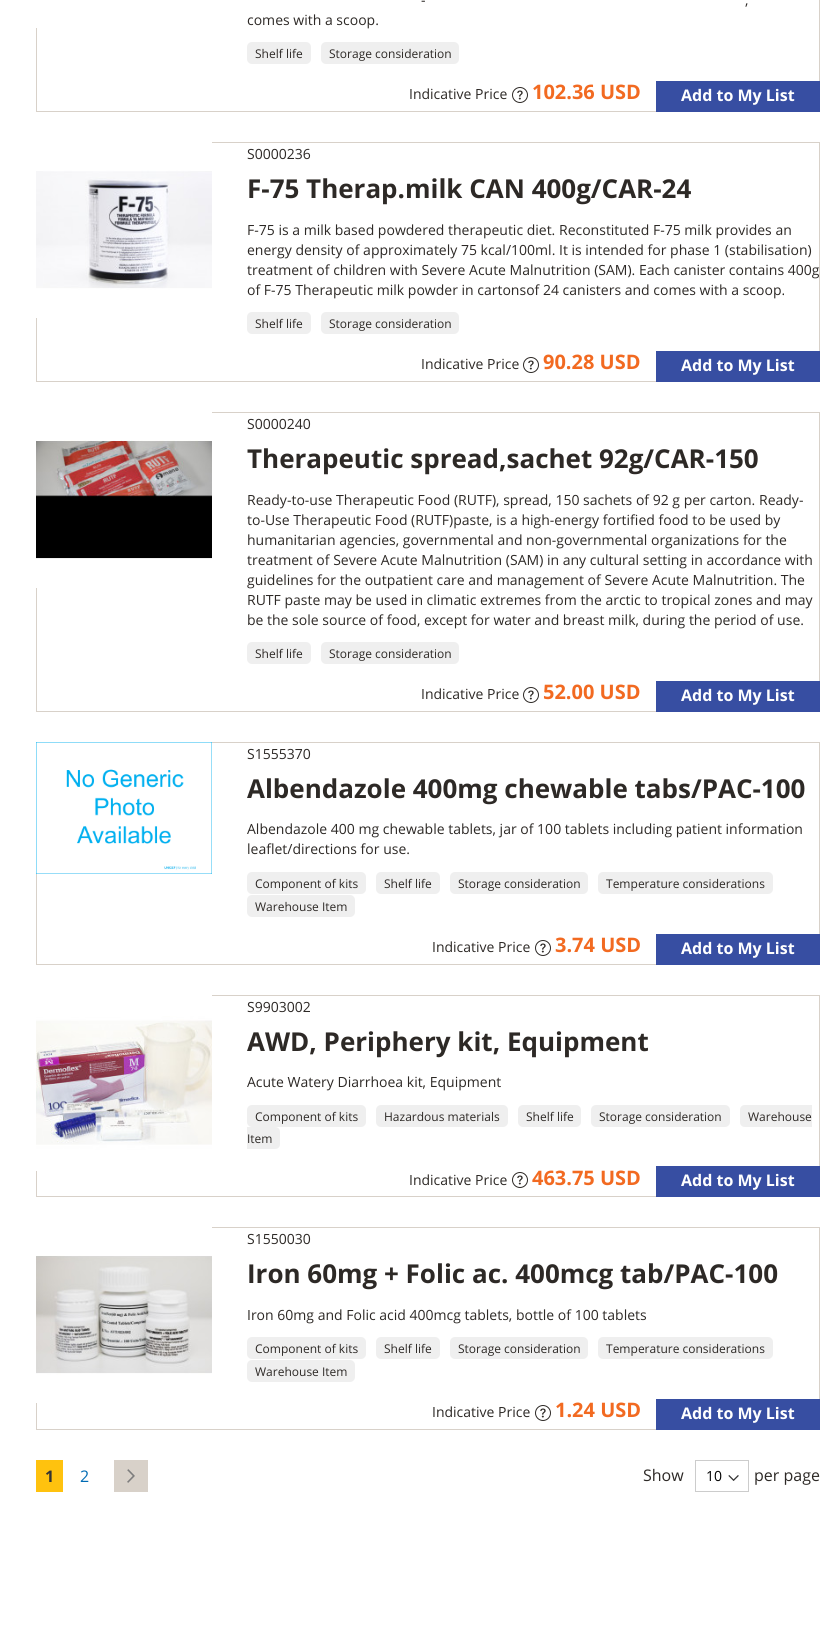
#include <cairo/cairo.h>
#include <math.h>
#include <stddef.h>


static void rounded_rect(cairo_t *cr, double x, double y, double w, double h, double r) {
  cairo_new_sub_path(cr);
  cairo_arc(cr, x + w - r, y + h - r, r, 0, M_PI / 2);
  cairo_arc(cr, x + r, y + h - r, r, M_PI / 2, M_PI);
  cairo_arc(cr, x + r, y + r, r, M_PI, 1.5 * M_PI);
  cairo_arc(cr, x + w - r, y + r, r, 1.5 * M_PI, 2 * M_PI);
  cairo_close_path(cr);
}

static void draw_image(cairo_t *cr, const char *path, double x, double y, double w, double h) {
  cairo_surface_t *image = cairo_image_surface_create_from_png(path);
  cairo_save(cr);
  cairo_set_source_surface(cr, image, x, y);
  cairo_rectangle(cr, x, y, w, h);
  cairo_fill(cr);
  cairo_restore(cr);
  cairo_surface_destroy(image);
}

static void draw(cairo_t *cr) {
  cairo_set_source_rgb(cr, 1, 1, 1);
  cairo_paint(cr);
  cairo_rectangle(cr, 36.5, -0.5, 783, 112);
  cairo_set_source_rgb(cr, 216 / 255.0, 209 / 255.0, 201 / 255.0);
  cairo_set_line_width(cr, 1);
  cairo_stroke(cr);
  cairo_set_source_rgb(cr, 1, 1, 1);
  cairo_rectangle(cr, 36, 0, 1, 28);
  cairo_fill(cr);
  cairo_set_source_rgb(cr, 239 / 255.0, 239 / 255.0, 239 / 255.0);
  rounded_rect(cr, 247, 42, 64, 22, 5);
  cairo_fill(cr);
  rounded_rect(cr, 321, 42, 138, 22, 5);
  cairo_fill(cr);
  draw_image(cr, "images/1.png", 512, 87, 16, 16);
  cairo_set_source_rgb(cr, 55 / 255.0, 78 / 255.0, 162 / 255.0);
  cairo_rectangle(cr, 656, 81, 164, 31);
  cairo_fill(cr);
  cairo_rectangle(cr, 36.5, 142.5, 783, 239);
  cairo_set_source_rgb(cr, 216 / 255.0, 209 / 255.0, 201 / 255.0);
  cairo_stroke(cr);
  draw_image(cr, "images/2.png", 36, 142, 176, 176);
  cairo_set_source_rgb(cr, 239 / 255.0, 239 / 255.0, 239 / 255.0);
  rounded_rect(cr, 247, 312, 64, 22, 5);
  cairo_fill(cr);
  rounded_rect(cr, 321, 312, 138, 22, 5);
  cairo_fill(cr);
  draw_image(cr, "images/1.png", 523, 357, 16, 16);
  cairo_set_source_rgb(cr, 55 / 255.0, 78 / 255.0, 162 / 255.0);
  cairo_rectangle(cr, 656, 351, 164, 31);
  cairo_fill(cr);
  cairo_rectangle(cr, 36.5, 412.5, 783, 299);
  cairo_set_source_rgb(cr, 216 / 255.0, 209 / 255.0, 201 / 255.0);
  cairo_stroke(cr);
  draw_image(cr, "images/3.png", 36, 412, 176, 176);
  cairo_set_source_rgb(cr, 239 / 255.0, 239 / 255.0, 239 / 255.0);
  rounded_rect(cr, 247, 642, 64, 22, 5);
  cairo_fill(cr);
  rounded_rect(cr, 321, 642, 138, 22, 5);
  cairo_fill(cr);
  draw_image(cr, "images/1.png", 523, 687, 16, 16);
  cairo_set_source_rgb(cr, 55 / 255.0, 78 / 255.0, 162 / 255.0);
  cairo_rectangle(cr, 656, 681, 164, 31);
  cairo_fill(cr);
  cairo_rectangle(cr, 36.5, 742.5, 783, 222);
  cairo_set_source_rgb(cr, 216 / 255.0, 209 / 255.0, 201 / 255.0);
  cairo_stroke(cr);
  draw_image(cr, "images/4.png", 36, 742, 176, 132);
  cairo_set_source_rgb(cr, 239 / 255.0, 239 / 255.0, 239 / 255.0);
  rounded_rect(cr, 247, 872, 119, 22, 5);
  cairo_fill(cr);
  rounded_rect(cr, 376, 872, 64, 22, 5);
  cairo_fill(cr);
  rounded_rect(cr, 450, 872, 138, 22, 5);
  cairo_fill(cr);
  rounded_rect(cr, 598, 872, 175, 22, 5);
  cairo_fill(cr);
  rounded_rect(cr, 247, 895, 108, 22, 5);
  cairo_fill(cr);
  draw_image(cr, "images/1.png", 535, 940, 16, 16);
  cairo_set_source_rgb(cr, 55 / 255.0, 78 / 255.0, 162 / 255.0);
  cairo_rectangle(cr, 656, 934, 164, 31);
  cairo_fill(cr);
  cairo_rectangle(cr, 36.5, 995.5, 783, 201);
  cairo_set_source_rgb(cr, 216 / 255.0, 209 / 255.0, 201 / 255.0);
  cairo_stroke(cr);
  draw_image(cr, "images/5.png", 36, 995, 176, 176);
  cairo_set_source_rgb(cr, 239 / 255.0, 239 / 255.0, 239 / 255.0);
  rounded_rect(cr, 247, 1105, 119, 22, 5);
  cairo_fill(cr);
  rounded_rect(cr, 376, 1105, 132, 22, 5);
  cairo_fill(cr);
  rounded_rect(cr, 518, 1105, 63, 22, 5);
  cairo_fill(cr);
  rounded_rect(cr, 591, 1105, 139, 22, 5);
  cairo_fill(cr);
  cairo_new_path(cr);
  cairo_move_to(cr, 745, 1105);
  cairo_line_to(cr, 812, 1105);
  cairo_line_to(cr, 812, 1127);
  cairo_line_to(cr, 745, 1127);
  cairo_curve_to(cr, 742, 1127, 740, 1125, 740, 1122);
  cairo_line_to(cr, 740, 1110);
  cairo_curve_to(cr, 740, 1107, 742, 1105, 745, 1105);
  cairo_close_path(cr);
  cairo_fill(cr);
  cairo_new_path(cr);
  cairo_move_to(cr, 247, 1127);
  cairo_line_to(cr, 275, 1127);
  cairo_curve_to(cr, 278, 1127, 280, 1129, 280, 1132);
  cairo_line_to(cr, 280, 1144);
  cairo_curve_to(cr, 280, 1147, 278, 1149, 275, 1149);
  cairo_line_to(cr, 247, 1149);
  cairo_close_path(cr);
  cairo_fill(cr);
  draw_image(cr, "images/1.png", 512, 1172, 16, 16);
  cairo_set_source_rgb(cr, 55 / 255.0, 78 / 255.0, 162 / 255.0);
  cairo_rectangle(cr, 656, 1166, 164, 31);
  cairo_fill(cr);
  cairo_rectangle(cr, 36.5, 1227.5, 783, 202);
  cairo_set_source_rgb(cr, 216 / 255.0, 209 / 255.0, 201 / 255.0);
  cairo_stroke(cr);
  draw_image(cr, "images/6.png", 36, 1227, 176, 176);
  cairo_set_source_rgb(cr, 239 / 255.0, 239 / 255.0, 239 / 255.0);
  rounded_rect(cr, 247, 1337, 119, 22, 5);
  cairo_fill(cr);
  rounded_rect(cr, 376, 1337, 64, 22, 5);
  cairo_fill(cr);
  rounded_rect(cr, 450, 1337, 138, 22, 5);
  cairo_fill(cr);
  rounded_rect(cr, 598, 1337, 175, 22, 5);
  cairo_fill(cr);
  rounded_rect(cr, 247, 1360, 108, 22, 5);
  cairo_fill(cr);
  draw_image(cr, "images/1.png", 535, 1405, 16, 16);
  cairo_set_source_rgb(cr, 55 / 255.0, 78 / 255.0, 162 / 255.0);
  cairo_rectangle(cr, 656, 1399, 164, 31);
  cairo_fill(cr);
  cairo_set_source_rgb(cr, 1, 194 / 255.0, 14 / 255.0);
  cairo_rectangle(cr, 36, 1460, 27, 32);
  cairo_fill(cr);
  cairo_set_source_rgb(cr, 216 / 255.0, 209 / 255.0, 201 / 255.0);
  cairo_rectangle(cr, 114, 1460, 34, 32);
  cairo_fill(cr);
  draw_image(cr, "images/7.png", 127, 1469, 8, 14);
  draw_image(cr, "images/8.png", 728, 1475, 11, 6);
  cairo_rectangle(cr, 695.5, 1460.5, 53, 31);
  cairo_set_source_rgb(cr, 204 / 255.0, 204 / 255.0, 204 / 255.0);
  cairo_stroke(cr);
  cairo_select_font_face(cr, "Open Sans", CAIRO_FONT_SLANT_NORMAL, CAIRO_FONT_WEIGHT_NORMAL);
  cairo_set_font_size(cr, 14);
  cairo_set_source_rgb(cr, 45 / 255.0, 41 / 255.0, 38 / 255.0);
  cairo_move_to(cr, 421, 5);
  cairo_show_text(cr, "-");
  cairo_move_to(cr, 745, 5);
  cairo_show_text(cr, ",");
  cairo_move_to(cr, 247, 25);
  cairo_show_text(cr, "comes with a scoop.");
  cairo_set_font_size(cr, 12);
  cairo_move_to(cr, 255, 58);
  cairo_show_text(cr, "Shelf life");
  cairo_move_to(cr, 329, 58);
  cairo_show_text(cr, "Storage consideration");
  cairo_set_font_size(cr, 14);
  cairo_move_to(cr, 409, 99);
  cairo_show_text(cr, "Indicative Price");
  cairo_select_font_face(cr, "Open Sans", CAIRO_FONT_SLANT_NORMAL, CAIRO_FONT_WEIGHT_BOLD);
  cairo_set_font_size(cr, 20);
  cairo_set_source_rgb(cr, 242 / 255.0, 106 / 255.0, 33 / 255.0);
  cairo_move_to(cr, 532, 99);
  cairo_show_text(cr, "102.36 USD");
  cairo_set_font_size(cr, 16);
  cairo_set_source_rgb(cr, 1, 1, 1);
  cairo_move_to(cr, 681, 101);
  cairo_show_text(cr, "Add to My List");
  cairo_select_font_face(cr, "Open Sans", CAIRO_FONT_SLANT_NORMAL, CAIRO_FONT_WEIGHT_NORMAL);
  cairo_set_font_size(cr, 14);
  cairo_set_source_rgb(cr, 45 / 255.0, 41 / 255.0, 38 / 255.0);
  cairo_move_to(cr, 247, 159);
  cairo_show_text(cr, "S0000236");
  cairo_select_font_face(cr, "Open Sans", CAIRO_FONT_SLANT_NORMAL, CAIRO_FONT_WEIGHT_BOLD);
  cairo_set_font_size(cr, 26);
  cairo_move_to(cr, 247, 198);
  cairo_show_text(cr, "F-75 Therap.milk CAN 400g/CAR-24");
  cairo_select_font_face(cr, "Open Sans", CAIRO_FONT_SLANT_NORMAL, CAIRO_FONT_WEIGHT_NORMAL);
  cairo_set_font_size(cr, 14);
  cairo_move_to(cr, 247, 235);
  cairo_show_text(cr, "F-75 is a milk based powdered therapeutic diet. Reconstituted F-75 milk provides an");
  cairo_move_to(cr, 247, 255);
  cairo_show_text(cr, "energy density of approximately 75 kcal/100ml. It is intended for phase 1 (stabilisation)");
  cairo_move_to(cr, 247, 275);
  cairo_show_text(cr, "treatment of children with Severe Acute Malnutrition (SAM). Each canister contains 400g");
  cairo_move_to(cr, 247, 295);
  cairo_show_text(cr, "of F-75 Therapeutic milk powder in cartonsof 24 canisters and comes with a scoop.");
  cairo_set_font_size(cr, 12);
  cairo_move_to(cr, 255, 328);
  cairo_show_text(cr, "Shelf life");
  cairo_move_to(cr, 329, 328);
  cairo_show_text(cr, "Storage consideration");
  cairo_set_font_size(cr, 14);
  cairo_move_to(cr, 421, 369);
  cairo_show_text(cr, "Indicative Price");
  cairo_select_font_face(cr, "Open Sans", CAIRO_FONT_SLANT_NORMAL, CAIRO_FONT_WEIGHT_BOLD);
  cairo_set_font_size(cr, 20);
  cairo_set_source_rgb(cr, 242 / 255.0, 106 / 255.0, 33 / 255.0);
  cairo_move_to(cr, 543, 369);
  cairo_show_text(cr, "90.28 USD");
  cairo_set_font_size(cr, 16);
  cairo_set_source_rgb(cr, 1, 1, 1);
  cairo_move_to(cr, 681, 371);
  cairo_show_text(cr, "Add to My List");
  cairo_select_font_face(cr, "Open Sans", CAIRO_FONT_SLANT_NORMAL, CAIRO_FONT_WEIGHT_NORMAL);
  cairo_set_font_size(cr, 14);
  cairo_set_source_rgb(cr, 45 / 255.0, 41 / 255.0, 38 / 255.0);
  cairo_move_to(cr, 247, 429);
  cairo_show_text(cr, "S0000240");
  cairo_select_font_face(cr, "Open Sans", CAIRO_FONT_SLANT_NORMAL, CAIRO_FONT_WEIGHT_BOLD);
  cairo_set_font_size(cr, 26);
  cairo_move_to(cr, 247, 468);
  cairo_show_text(cr, "Therapeutic spread,sachet 92g/CAR-150");
  cairo_select_font_face(cr, "Open Sans", CAIRO_FONT_SLANT_NORMAL, CAIRO_FONT_WEIGHT_NORMAL);
  cairo_set_font_size(cr, 14);
  cairo_move_to(cr, 247, 505);
  cairo_show_text(cr, "Ready-to-use Therapeutic Food (RUTF), spread, 150 sachets of 92 g per carton. Ready-");
  cairo_move_to(cr, 247, 525);
  cairo_show_text(cr, "to-Use Therapeutic Food (RUTF)paste, is a high-energy fortified food to be used by");
  cairo_move_to(cr, 247, 545);
  cairo_show_text(cr, "humanitarian agencies, governmental and non-governmental organizations for the");
  cairo_move_to(cr, 247, 565);
  cairo_show_text(cr, "treatment of Severe Acute Malnutrition (SAM) in any cultural setting in accordance with");
  cairo_move_to(cr, 247, 585);
  cairo_show_text(cr, "guidelines for the outpatient care and management of Severe Acute Malnutrition. The");
  cairo_move_to(cr, 247, 605);
  cairo_show_text(cr, "RUTF paste may be used in climatic extremes from the arctic to tropical zones and may");
  cairo_move_to(cr, 247, 625);
  cairo_show_text(cr, "be the sole source of food, except for water and breast milk, during the period of use.");
  cairo_set_font_size(cr, 12);
  cairo_move_to(cr, 255, 658);
  cairo_show_text(cr, "Shelf life");
  cairo_move_to(cr, 329, 658);
  cairo_show_text(cr, "Storage consideration");
  cairo_set_font_size(cr, 14);
  cairo_move_to(cr, 421, 699);
  cairo_show_text(cr, "Indicative Price");
  cairo_select_font_face(cr, "Open Sans", CAIRO_FONT_SLANT_NORMAL, CAIRO_FONT_WEIGHT_BOLD);
  cairo_set_font_size(cr, 20);
  cairo_set_source_rgb(cr, 242 / 255.0, 106 / 255.0, 33 / 255.0);
  cairo_move_to(cr, 543, 699);
  cairo_show_text(cr, "52.00 USD");
  cairo_set_font_size(cr, 16);
  cairo_set_source_rgb(cr, 1, 1, 1);
  cairo_move_to(cr, 681, 701);
  cairo_show_text(cr, "Add to My List");
  cairo_select_font_face(cr, "Open Sans", CAIRO_FONT_SLANT_NORMAL, CAIRO_FONT_WEIGHT_NORMAL);
  cairo_set_font_size(cr, 14);
  cairo_set_source_rgb(cr, 45 / 255.0, 41 / 255.0, 38 / 255.0);
  cairo_move_to(cr, 247, 759);
  cairo_show_text(cr, "S1555370");
  cairo_select_font_face(cr, "Open Sans", CAIRO_FONT_SLANT_NORMAL, CAIRO_FONT_WEIGHT_BOLD);
  cairo_set_font_size(cr, 26);
  cairo_move_to(cr, 247, 798);
  cairo_show_text(cr, "Albendazole 400mg chewable tabs/PAC-100");
  cairo_select_font_face(cr, "Open Sans", CAIRO_FONT_SLANT_NORMAL, CAIRO_FONT_WEIGHT_NORMAL);
  cairo_set_font_size(cr, 14);
  cairo_move_to(cr, 247, 834);
  cairo_show_text(cr, "Albendazole 400 mg chewable tablets, jar of 100 tablets including patient information");
  cairo_move_to(cr, 247, 854);
  cairo_show_text(cr, "leaflet/directions for use.");
  cairo_set_font_size(cr, 12);
  cairo_move_to(cr, 255, 888);
  cairo_show_text(cr, "Component of kits");
  cairo_move_to(cr, 384, 888);
  cairo_show_text(cr, "Shelf life");
  cairo_move_to(cr, 458, 888);
  cairo_show_text(cr, "Storage consideration");
  cairo_move_to(cr, 606, 888);
  cairo_show_text(cr, "Temperature considerations");
  cairo_move_to(cr, 255, 911);
  cairo_show_text(cr, "Warehouse Item");
  cairo_set_font_size(cr, 14);
  cairo_move_to(cr, 432, 952);
  cairo_show_text(cr, "Indicative Price");
  cairo_select_font_face(cr, "Open Sans", CAIRO_FONT_SLANT_NORMAL, CAIRO_FONT_WEIGHT_BOLD);
  cairo_set_font_size(cr, 20);
  cairo_set_source_rgb(cr, 242 / 255.0, 106 / 255.0, 33 / 255.0);
  cairo_move_to(cr, 555, 952);
  cairo_show_text(cr, "3.74 USD");
  cairo_set_font_size(cr, 16);
  cairo_set_source_rgb(cr, 1, 1, 1);
  cairo_move_to(cr, 681, 954);
  cairo_show_text(cr, "Add to My List");
  cairo_select_font_face(cr, "Open Sans", CAIRO_FONT_SLANT_NORMAL, CAIRO_FONT_WEIGHT_NORMAL);
  cairo_set_font_size(cr, 14);
  cairo_set_source_rgb(cr, 45 / 255.0, 41 / 255.0, 38 / 255.0);
  cairo_move_to(cr, 247, 1012);
  cairo_show_text(cr, "S9903002");
  cairo_select_font_face(cr, "Open Sans", CAIRO_FONT_SLANT_NORMAL, CAIRO_FONT_WEIGHT_BOLD);
  cairo_set_font_size(cr, 26);
  cairo_move_to(cr, 247, 1051);
  cairo_show_text(cr, "AWD, Periphery kit, Equipment");
  cairo_select_font_face(cr, "Open Sans", CAIRO_FONT_SLANT_NORMAL, CAIRO_FONT_WEIGHT_NORMAL);
  cairo_set_font_size(cr, 14);
  cairo_move_to(cr, 247, 1087);
  cairo_show_text(cr, "Acute Watery Diarrhoea kit, Equipment");
  cairo_set_font_size(cr, 12);
  cairo_move_to(cr, 255, 1121);
  cairo_show_text(cr, "Component of kits");
  cairo_move_to(cr, 384, 1121);
  cairo_show_text(cr, "Hazardous materials");
  cairo_move_to(cr, 526, 1121);
  cairo_show_text(cr, "Shelf life");
  cairo_move_to(cr, 599, 1121);
  cairo_show_text(cr, "Storage consideration");
  cairo_move_to(cr, 748, 1121);
  cairo_show_text(cr, "Warehouse");
  cairo_move_to(cr, 247, 1143);
  cairo_show_text(cr, "Item");
  cairo_set_font_size(cr, 14);
  cairo_move_to(cr, 409, 1185);
  cairo_show_text(cr, "Indicative Price");
  cairo_select_font_face(cr, "Open Sans", CAIRO_FONT_SLANT_NORMAL, CAIRO_FONT_WEIGHT_BOLD);
  cairo_set_font_size(cr, 20);
  cairo_set_source_rgb(cr, 242 / 255.0, 106 / 255.0, 33 / 255.0);
  cairo_move_to(cr, 532, 1185);
  cairo_show_text(cr, "463.75 USD");
  cairo_set_font_size(cr, 16);
  cairo_set_source_rgb(cr, 1, 1, 1);
  cairo_move_to(cr, 681, 1186);
  cairo_show_text(cr, "Add to My List");
  cairo_select_font_face(cr, "Open Sans", CAIRO_FONT_SLANT_NORMAL, CAIRO_FONT_WEIGHT_NORMAL);
  cairo_set_font_size(cr, 14);
  cairo_set_source_rgb(cr, 45 / 255.0, 41 / 255.0, 38 / 255.0);
  cairo_move_to(cr, 247, 1244);
  cairo_show_text(cr, "S1550030");
  cairo_select_font_face(cr, "Open Sans", CAIRO_FONT_SLANT_NORMAL, CAIRO_FONT_WEIGHT_BOLD);
  cairo_set_font_size(cr, 26);
  cairo_move_to(cr, 247, 1283);
  cairo_show_text(cr, "Iron 60mg + Folic ac. 400mcg tab/PAC-100");
  cairo_select_font_face(cr, "Open Sans", CAIRO_FONT_SLANT_NORMAL, CAIRO_FONT_WEIGHT_NORMAL);
  cairo_set_font_size(cr, 14);
  cairo_move_to(cr, 247, 1320);
  cairo_show_text(cr, "Iron 60mg and Folic acid 400mcg tablets, bottle of 100 tablets");
  cairo_set_font_size(cr, 12);
  cairo_move_to(cr, 255, 1353);
  cairo_show_text(cr, "Component of kits");
  cairo_move_to(cr, 384, 1353);
  cairo_show_text(cr, "Shelf life");
  cairo_move_to(cr, 458, 1353);
  cairo_show_text(cr, "Storage consideration");
  cairo_move_to(cr, 606, 1353);
  cairo_show_text(cr, "Temperature considerations");
  cairo_move_to(cr, 255, 1376);
  cairo_show_text(cr, "Warehouse Item");
  cairo_set_font_size(cr, 14);
  cairo_move_to(cr, 432, 1417);
  cairo_show_text(cr, "Indicative Price");
  cairo_select_font_face(cr, "Open Sans", CAIRO_FONT_SLANT_NORMAL, CAIRO_FONT_WEIGHT_BOLD);
  cairo_set_font_size(cr, 20);
  cairo_set_source_rgb(cr, 242 / 255.0, 106 / 255.0, 33 / 255.0);
  cairo_move_to(cr, 555, 1417);
  cairo_show_text(cr, "1.24 USD");
  cairo_set_font_size(cr, 16);
  cairo_set_source_rgb(cr, 1, 1, 1);
  cairo_move_to(cr, 681, 1419);
  cairo_show_text(cr, "Add to My List");
  cairo_set_source_rgb(cr, 51 / 255.0, 51 / 255.0, 51 / 255.0);
  cairo_move_to(cr, 45, 1482);
  cairo_show_text(cr, "1");
  cairo_select_font_face(cr, "Open Sans", CAIRO_FONT_SLANT_NORMAL, CAIRO_FONT_WEIGHT_NORMAL);
  cairo_set_source_rgb(cr, 0, 107 / 255.0, 180 / 255.0);
  cairo_move_to(cr, 80, 1482);
  cairo_show_text(cr, "2");
  cairo_set_source_rgb(cr, 45 / 255.0, 41 / 255.0, 38 / 255.0);
  cairo_move_to(cr, 643, 1481);
  cairo_show_text(cr, "Show");
  cairo_set_font_size(cr, 14);
  cairo_set_source_rgb(cr, 0, 0, 0);
  cairo_move_to(cr, 706, 1481);
  cairo_show_text(cr, "10");
  cairo_set_font_size(cr, 16);
  cairo_set_source_rgb(cr, 45 / 255.0, 41 / 255.0, 38 / 255.0);
  cairo_move_to(cr, 754, 1481);
  cairo_show_text(cr, "per page");
}

int main(void) {
  cairo_surface_t *surface = cairo_image_surface_create(CAIRO_FORMAT_RGB24, 840, 1632);
  cairo_t *cr = cairo_create(surface);
  cairo_font_options_t *options = cairo_font_options_create();
  cairo_font_options_set_hint_metrics(options, CAIRO_HINT_METRICS_OFF);
  cairo_font_options_set_hint_style(options, CAIRO_HINT_STYLE_NONE);
  cairo_set_font_options(cr, options);
  cairo_set_miter_limit(cr, 4);
  draw(cr);
  cairo_surface_write_to_png(surface, "out.png");
  cairo_font_options_destroy(options);
  cairo_destroy(cr);
  cairo_surface_destroy(surface);
  return 0;
}
